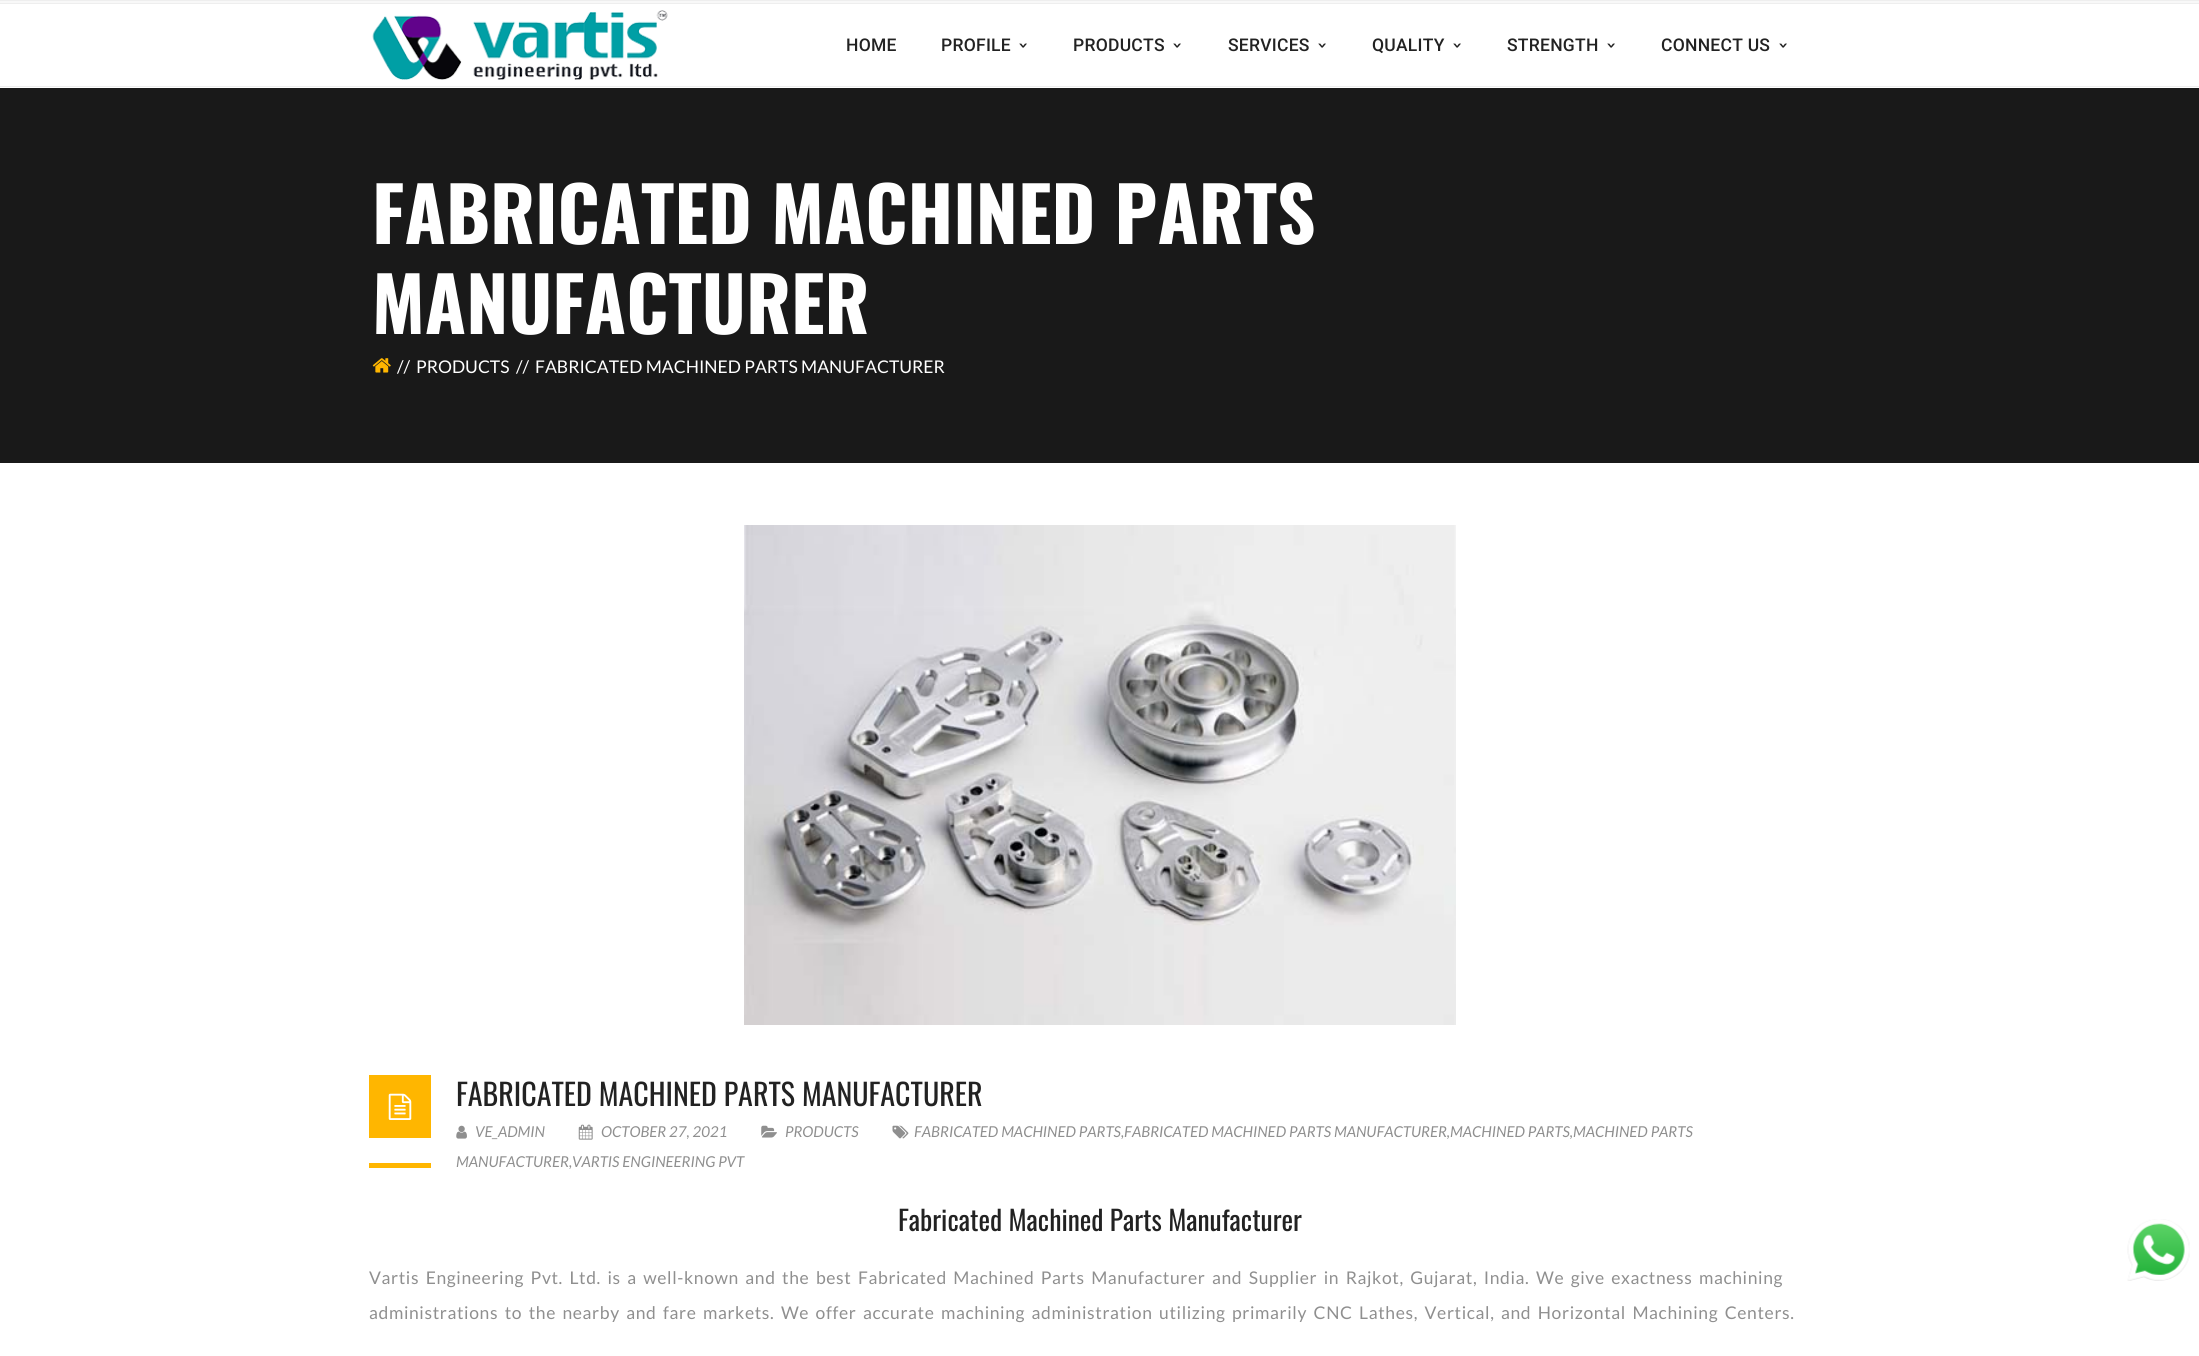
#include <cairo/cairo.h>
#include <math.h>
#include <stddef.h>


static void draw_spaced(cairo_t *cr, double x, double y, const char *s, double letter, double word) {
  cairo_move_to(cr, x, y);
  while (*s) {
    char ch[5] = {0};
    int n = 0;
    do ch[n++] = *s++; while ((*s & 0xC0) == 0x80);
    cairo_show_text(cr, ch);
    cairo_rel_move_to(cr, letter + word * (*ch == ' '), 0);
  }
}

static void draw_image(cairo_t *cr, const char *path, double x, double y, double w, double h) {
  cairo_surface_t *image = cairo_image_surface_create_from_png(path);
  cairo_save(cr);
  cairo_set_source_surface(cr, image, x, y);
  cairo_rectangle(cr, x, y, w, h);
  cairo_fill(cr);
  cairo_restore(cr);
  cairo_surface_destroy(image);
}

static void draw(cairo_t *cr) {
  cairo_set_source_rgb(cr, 1, 1, 1);
  cairo_paint(cr);
  cairo_set_source_rgb(cr, 248 / 255.0, 248 / 255.0, 248 / 255.0);
  cairo_rectangle(cr, 0, 1, 2199, 2);
  cairo_fill(cr);
  cairo_set_source_rgb(cr, 238 / 255.0, 238 / 255.0, 238 / 255.0);
  cairo_rectangle(cr, 0, 0, 2199, 1);
  cairo_fill(cr);
  cairo_rectangle(cr, 0, 3, 2199, 1);
  cairo_fill(cr);
  cairo_rectangle(cr, 0, 86, 2199, 1);
  cairo_fill(cr);
  draw_image(cr, "images/1.png", 372, 10, 296, 70);
  cairo_set_source_rgb(cr, 25 / 255.0, 25 / 255.0, 25 / 255.0);
  cairo_rectangle(cr, 0, 88, 2199, 375);
  cairo_fill(cr);
  draw_image(cr, "images/2.png", 372, 358, 19, 15);
  draw_image(cr, "images/3.png", 744, 525, 712, 500);
  cairo_set_source_rgb(cr, 1, 182 / 255.0, 0);
  cairo_rectangle(cr, 369, 1075, 62, 63);
  cairo_fill(cr);
  draw_image(cr, "images/4.png", 388, 1093, 24, 27);
  cairo_rectangle(cr, 369, 1163, 62, 5);
  cairo_fill(cr);
  draw_image(cr, "images/5.png", 892, 1125, 17, 14);
  draw_image(cr, "images/6.png", 456, 1125, 11, 14);
  draw_image(cr, "images/7.png", 578, 1124, 15, 16);
  draw_image(cr, "images/8.png", 761, 1125, 16, 13);
  draw_image(cr, "images/9.png", 2127, 1219, 63, 62);
  cairo_select_font_face(cr, "Roboto Medium", CAIRO_FONT_SLANT_NORMAL, CAIRO_FONT_WEIGHT_NORMAL);
  cairo_set_font_size(cr, 17.5);
  cairo_set_source_rgb(cr, 34 / 255.0, 34 / 255.0, 34 / 255.0);
  draw_spaced(cr, 846, 51, "HOME", 0.25, 0);
  draw_spaced(cr, 941, 51, "PROFILE", 0.25, 0);
  cairo_select_font_face(cr, "DejaVu Sans Mono", CAIRO_FONT_SLANT_NORMAL, CAIRO_FONT_WEIGHT_BOLD);
  cairo_save(cr);
  cairo_translate(cr, 1018, 40);
  cairo_rotate(cr, 90 * M_PI / 180);
  draw_spaced(cr, 0, 0, "›", 0.25, 0);
  cairo_restore(cr);
  cairo_select_font_face(cr, "Roboto Medium", CAIRO_FONT_SLANT_NORMAL, CAIRO_FONT_WEIGHT_NORMAL);
  draw_spaced(cr, 1073, 51, "PRODUCTS", 0.25, 0);
  cairo_select_font_face(cr, "DejaVu Sans Mono", CAIRO_FONT_SLANT_NORMAL, CAIRO_FONT_WEIGHT_BOLD);
  cairo_save(cr);
  cairo_translate(cr, 1172, 40);
  cairo_rotate(cr, 90 * M_PI / 180);
  draw_spaced(cr, 0, 0, "›", 0.25, 0);
  cairo_restore(cr);
  cairo_select_font_face(cr, "Roboto Medium", CAIRO_FONT_SLANT_NORMAL, CAIRO_FONT_WEIGHT_NORMAL);
  draw_spaced(cr, 1228, 51, "SERVICES", 0.25, 0);
  cairo_select_font_face(cr, "DejaVu Sans Mono", CAIRO_FONT_SLANT_NORMAL, CAIRO_FONT_WEIGHT_BOLD);
  cairo_save(cr);
  cairo_translate(cr, 1317, 40);
  cairo_rotate(cr, 90 * M_PI / 180);
  draw_spaced(cr, 0, 0, "›", 0.25, 0);
  cairo_restore(cr);
  cairo_select_font_face(cr, "Roboto Medium", CAIRO_FONT_SLANT_NORMAL, CAIRO_FONT_WEIGHT_NORMAL);
  draw_spaced(cr, 1372, 51, "QUALITY", 0.25, 0);
  cairo_select_font_face(cr, "DejaVu Sans Mono", CAIRO_FONT_SLANT_NORMAL, CAIRO_FONT_WEIGHT_BOLD);
  cairo_save(cr);
  cairo_translate(cr, 1452, 40);
  cairo_rotate(cr, 90 * M_PI / 180);
  draw_spaced(cr, 0, 0, "›", 0.25, 0);
  cairo_restore(cr);
  cairo_select_font_face(cr, "Roboto Medium", CAIRO_FONT_SLANT_NORMAL, CAIRO_FONT_WEIGHT_NORMAL);
  draw_spaced(cr, 1507, 51, "STRENGTH", 0.25, 0);
  cairo_select_font_face(cr, "DejaVu Sans Mono", CAIRO_FONT_SLANT_NORMAL, CAIRO_FONT_WEIGHT_BOLD);
  cairo_save(cr);
  cairo_translate(cr, 1606, 40);
  cairo_rotate(cr, 90 * M_PI / 180);
  draw_spaced(cr, 0, 0, "›", 0.25, 0);
  cairo_restore(cr);
  cairo_select_font_face(cr, "Roboto Medium", CAIRO_FONT_SLANT_NORMAL, CAIRO_FONT_WEIGHT_NORMAL);
  draw_spaced(cr, 1661, 51, "CONNECT US", 0.25, 0);
  cairo_select_font_face(cr, "DejaVu Sans Mono", CAIRO_FONT_SLANT_NORMAL, CAIRO_FONT_WEIGHT_BOLD);
  cairo_save(cr);
  cairo_translate(cr, 1778, 40);
  cairo_rotate(cr, 90 * M_PI / 180);
  draw_spaced(cr, 0, 0, "›", 0.25, 0);
  cairo_restore(cr);
  cairo_select_font_face(cr, "Oswald", CAIRO_FONT_SLANT_NORMAL, CAIRO_FONT_WEIGHT_BOLD);
  cairo_set_font_size(cr, 75);
  cairo_set_source_rgb(cr, 1, 1, 1);
  cairo_move_to(cr, 372, 244);
  cairo_show_text(cr, "FABRICATED MACHINED PARTS");
  cairo_move_to(cr, 372, 334);
  cairo_show_text(cr, "MANUFACTURER");
  cairo_select_font_face(cr, "Lato", CAIRO_FONT_SLANT_NORMAL, CAIRO_FONT_WEIGHT_NORMAL);
  cairo_set_font_size(cr, 17.5);
  cairo_move_to(cr, 397, 373);
  cairo_show_text(cr, "//");
  cairo_move_to(cr, 416, 373);
  cairo_show_text(cr, "PRODUCTS");
  cairo_move_to(cr, 516, 373);
  cairo_show_text(cr, "//");
  cairo_move_to(cr, 535, 373);
  cairo_show_text(cr, "FABRICATED MACHINED PARTS MANUFACTURER");
  cairo_select_font_face(cr, "Oswald", CAIRO_FONT_SLANT_NORMAL, CAIRO_FONT_WEIGHT_NORMAL);
  cairo_set_font_size(cr, 30);
  cairo_set_source_rgb(cr, 34 / 255.0, 34 / 255.0, 34 / 255.0);
  cairo_move_to(cr, 456, 1106);
  cairo_show_text(cr, "FABRICATED MACHINED PARTS MANUFACTURER");
  cairo_select_font_face(cr, "Lato", CAIRO_FONT_SLANT_ITALIC, CAIRO_FONT_WEIGHT_NORMAL);
  cairo_set_font_size(cr, 15);
  cairo_set_source_rgb(cr, 143 / 255.0, 143 / 255.0, 143 / 255.0);
  cairo_move_to(cr, 914, 1137);
  cairo_show_text(cr, "FABRICATED MACHINED PARTS,FABRICATED MACHINED PARTS MANUFACTURER,MACHINED PARTS,MACHINED PARTS");
  cairo_move_to(cr, 456, 1167);
  cairo_show_text(cr, "MANUFACTURER,VARTIS ENGINEERING PVT");
  cairo_move_to(cr, 475, 1137);
  cairo_show_text(cr, "VE_ADMIN");
  cairo_move_to(cr, 601, 1137);
  cairo_show_text(cr, "OCTOBER 27, 2021");
  cairo_move_to(cr, 785, 1137);
  cairo_show_text(cr, "PRODUCTS");
  cairo_select_font_face(cr, "Oswald", CAIRO_FONT_SLANT_NORMAL, CAIRO_FONT_WEIGHT_NORMAL);
  cairo_set_font_size(cr, 27.5);
  cairo_set_source_rgb(cr, 34 / 255.0, 34 / 255.0, 34 / 255.0);
  cairo_move_to(cr, 898, 1231);
  cairo_show_text(cr, "Fabricated Machined Parts Manufacturer");
  cairo_select_font_face(cr, "Lato", CAIRO_FONT_SLANT_NORMAL, CAIRO_FONT_WEIGHT_NORMAL);
  cairo_set_font_size(cr, 17.5);
  cairo_set_source_rgb(cr, 143 / 255.0, 143 / 255.0, 143 / 255.0);
  draw_spaced(cr, 369, 1284, "Vartis Engineering Pvt. Ltd. is a well-known and the best Fabricated Machined Parts Manufacturer and Supplier in Rajkot, Gujarat, India. We give exactness machining", 0.62, 2.5);
  draw_spaced(cr, 369, 1319, "administrations to the nearby and fare markets. We offer accurate machining administration utilizing primarily CNC Lathes, Vertical, and Horizontal Machining Centers.", 0.62, 2.5);
}

int main(void) {
  cairo_surface_t *surface = cairo_image_surface_create(CAIRO_FORMAT_RGB24, 2199, 1356);
  cairo_t *cr = cairo_create(surface);
  cairo_font_options_t *options = cairo_font_options_create();
  cairo_font_options_set_hint_metrics(options, CAIRO_HINT_METRICS_OFF);
  cairo_font_options_set_hint_style(options, CAIRO_HINT_STYLE_NONE);
  cairo_set_font_options(cr, options);
  cairo_set_miter_limit(cr, 4);
  draw(cr);
  cairo_surface_write_to_png(surface, "out.png");
  cairo_font_options_destroy(options);
  cairo_destroy(cr);
  cairo_surface_destroy(surface);
  return 0;
}
